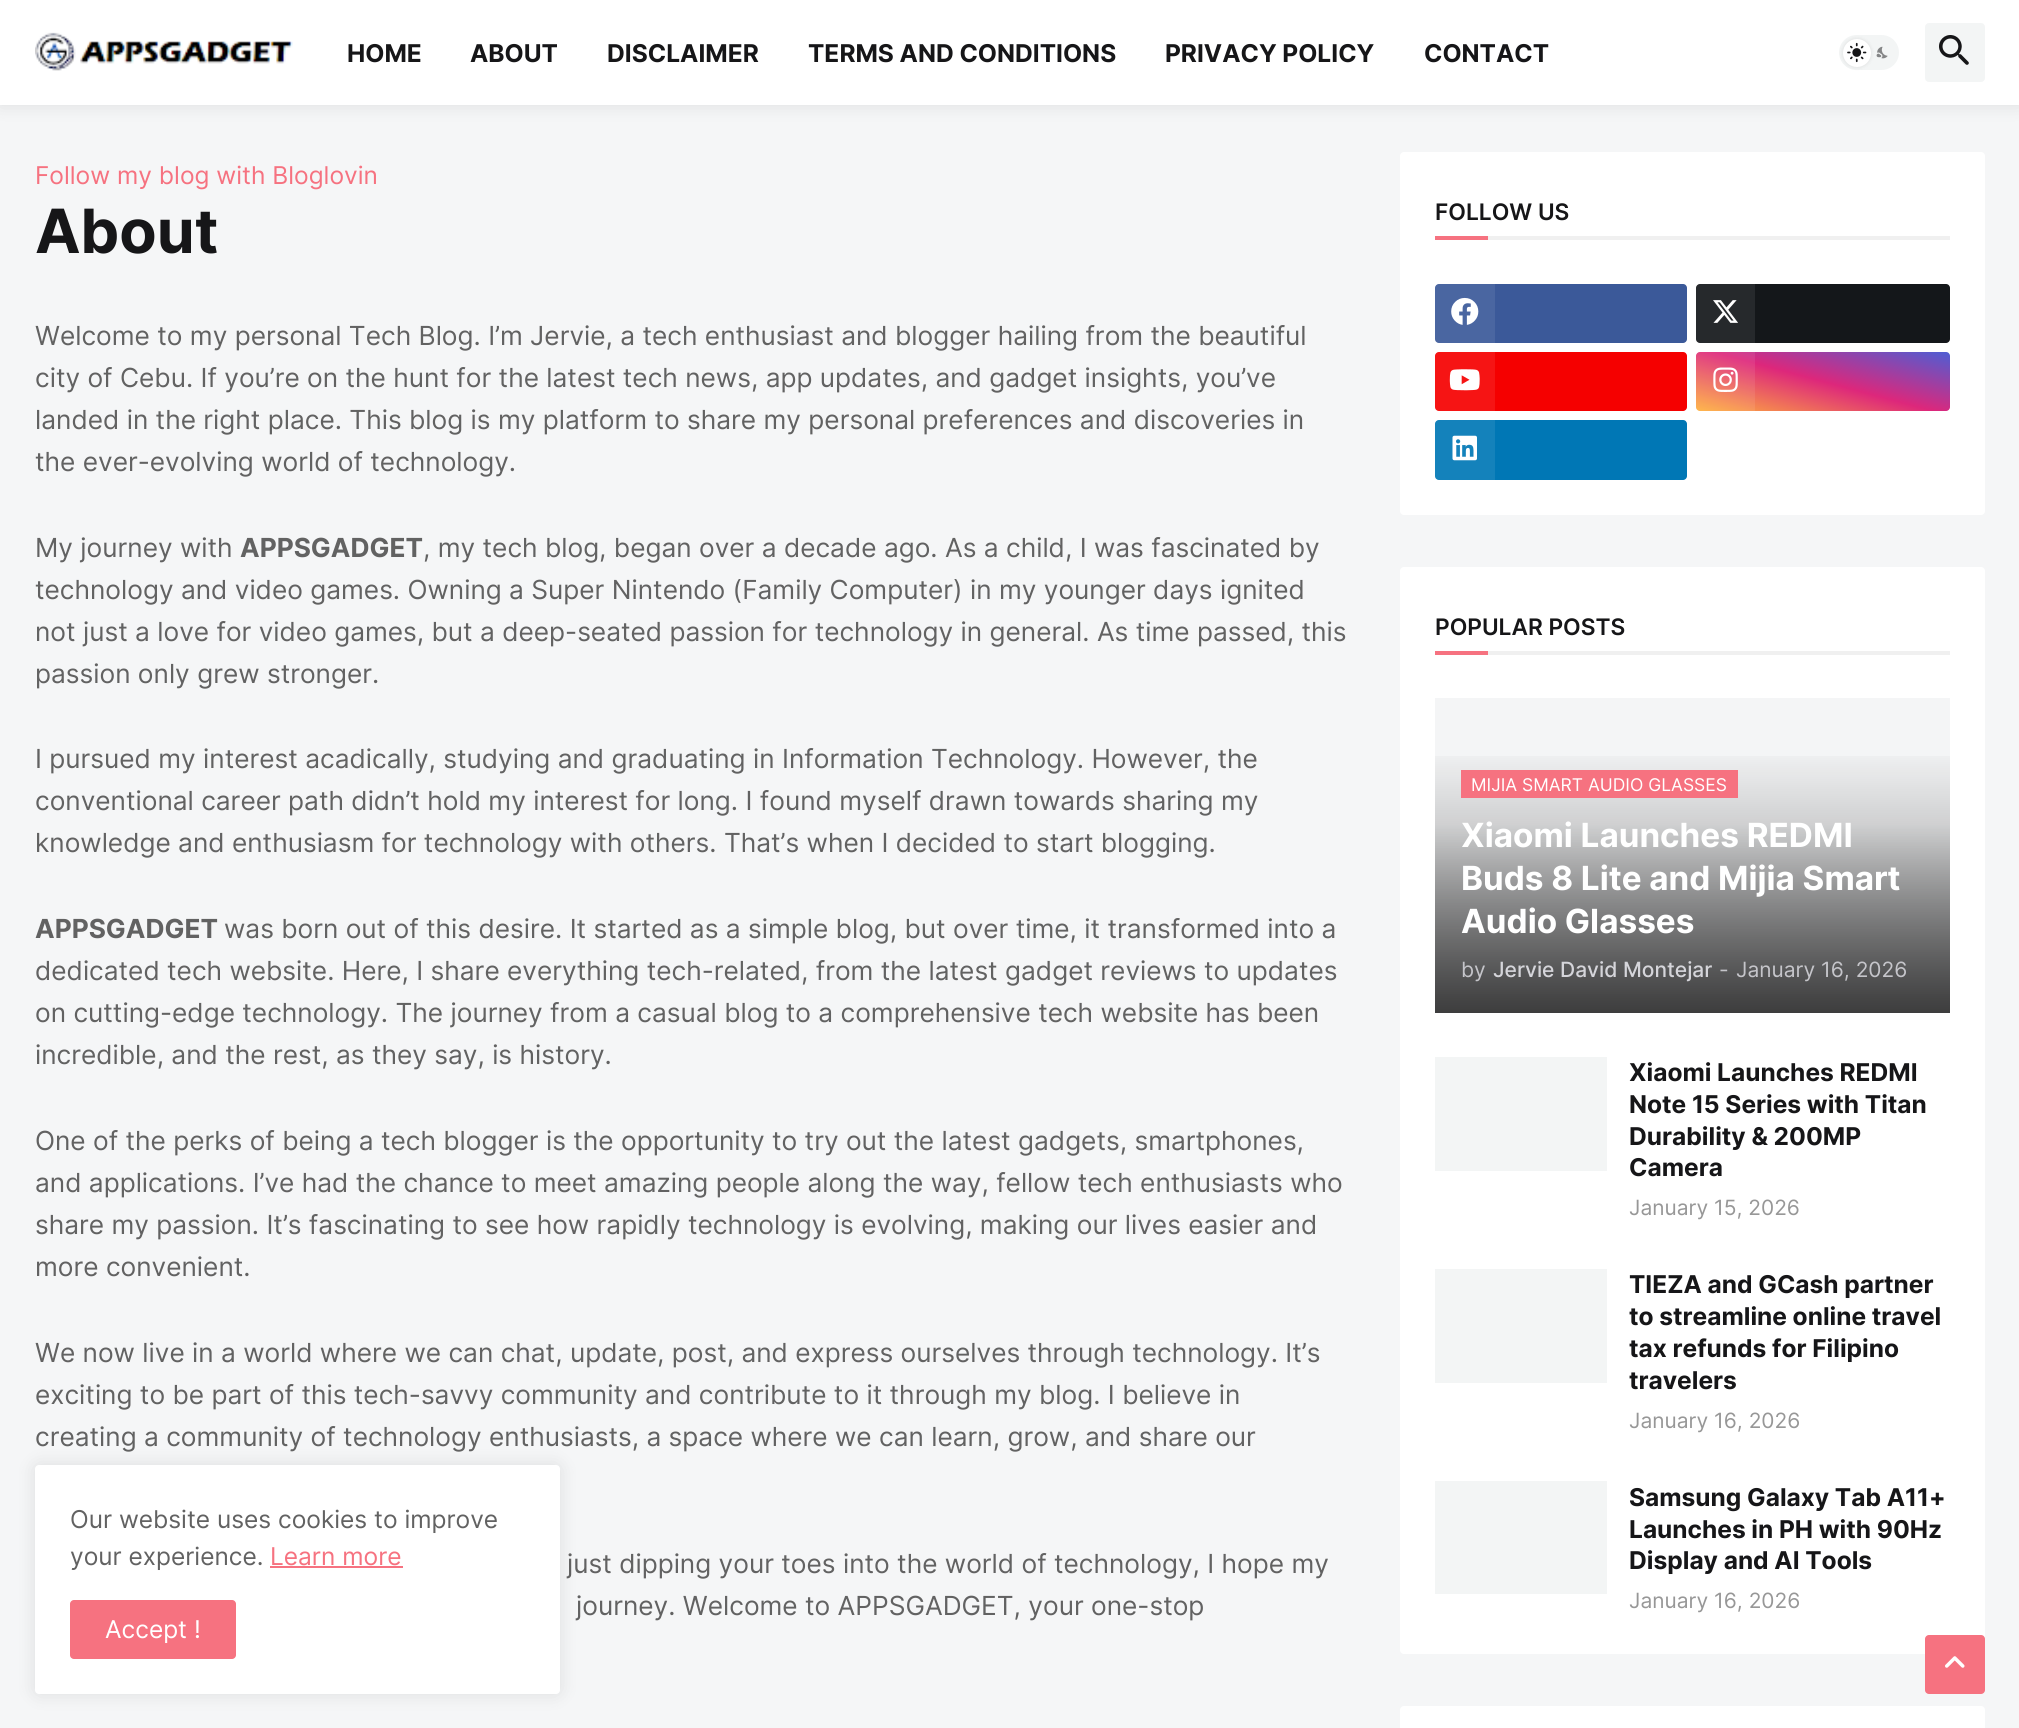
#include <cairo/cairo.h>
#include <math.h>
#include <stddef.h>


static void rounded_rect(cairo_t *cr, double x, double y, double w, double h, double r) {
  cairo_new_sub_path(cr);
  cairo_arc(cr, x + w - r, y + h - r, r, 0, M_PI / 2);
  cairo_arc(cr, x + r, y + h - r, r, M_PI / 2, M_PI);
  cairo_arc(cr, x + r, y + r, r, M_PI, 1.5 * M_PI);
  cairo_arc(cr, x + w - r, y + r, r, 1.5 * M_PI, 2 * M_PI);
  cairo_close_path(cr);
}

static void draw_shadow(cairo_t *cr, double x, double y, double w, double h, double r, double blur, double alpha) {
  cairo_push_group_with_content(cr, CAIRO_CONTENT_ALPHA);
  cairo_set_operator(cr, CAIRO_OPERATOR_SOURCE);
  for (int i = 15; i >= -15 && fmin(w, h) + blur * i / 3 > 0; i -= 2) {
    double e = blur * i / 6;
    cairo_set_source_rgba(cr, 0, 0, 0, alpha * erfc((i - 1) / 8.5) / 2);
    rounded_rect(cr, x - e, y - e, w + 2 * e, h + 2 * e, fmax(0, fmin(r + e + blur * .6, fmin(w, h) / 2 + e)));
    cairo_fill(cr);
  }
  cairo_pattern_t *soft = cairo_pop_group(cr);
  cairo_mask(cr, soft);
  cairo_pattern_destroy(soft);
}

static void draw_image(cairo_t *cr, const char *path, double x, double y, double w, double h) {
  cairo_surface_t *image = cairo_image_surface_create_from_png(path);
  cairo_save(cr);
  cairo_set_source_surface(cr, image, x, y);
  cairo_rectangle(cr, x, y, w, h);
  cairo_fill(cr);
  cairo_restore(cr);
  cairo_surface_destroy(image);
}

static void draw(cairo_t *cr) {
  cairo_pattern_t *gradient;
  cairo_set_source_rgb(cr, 245 / 255.0, 246 / 255.0, 247 / 255.0);
  cairo_paint(cr);
  cairo_set_source_rgb(cr, 0, 0, 0);
  draw_shadow(cr, 0, 0, 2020, 105, 0, 9, 0.1);
  cairo_set_source_rgb(cr, 1, 1, 1);
  cairo_rectangle(cr, 0, 0, 2019, 105);
  cairo_fill(cr);
  draw_image(cr, "images/1.png", 35, 32, 258, 39);
  cairo_set_source_rgb(cr, 243 / 255.0, 245 / 255.0, 245 / 255.0);
  rounded_rect(cr, 1839, 35, 60, 35, 17.5);
  cairo_fill(cr);
  draw_image(cr, "images/3.png", 1876, 46, 12, 13);
  cairo_set_source_rgb(cr, 0, 0, 0);
  draw_shadow(cr, 1843, 39, 28, 28, 14, 2, 0.1);
  cairo_set_source_rgb(cr, 1, 1, 1);
  cairo_arc(cr, 1857, 53, 14, 0, 2 * M_PI);
  cairo_fill(cr);
  draw_image(cr, "images/2.png", 1847, 42, 20, 21);
  cairo_set_source_rgb(cr, 243 / 255.0, 245 / 255.0, 245 / 255.0);
  rounded_rect(cr, 1925, 23, 60, 59, 4);
  cairo_fill(cr);
  draw_image(cr, "images/4.png", 1939, 35, 30, 30);
  cairo_set_source_rgb(cr, 1, 1, 1);
  rounded_rect(cr, 1400, 152, 585, 363, 4);
  cairo_fill(cr);
  cairo_set_source_rgb(cr, 240 / 255.0, 240 / 255.0, 240 / 255.0);
  cairo_rectangle(cr, 1488, 236, 462, 4);
  cairo_fill(cr);
  cairo_set_source_rgb(cr, 246 / 255.0, 114 / 255.0, 128 / 255.0);
  cairo_rectangle(cr, 1435, 236, 53, 4);
  cairo_fill(cr);
  cairo_set_source_rgb(cr, 59 / 255.0, 89 / 255.0, 153 / 255.0);
  rounded_rect(cr, 1435, 284, 252, 59, 4);
  cairo_fill(cr);
  cairo_set_source_rgba(cr, 1, 1, 1, 0.08);
  cairo_new_path(cr);
  cairo_move_to(cr, 1439, 284);
  cairo_line_to(cr, 1495, 284);
  cairo_line_to(cr, 1495, 343);
  cairo_line_to(cr, 1439, 343);
  cairo_curve_to(cr, 1437, 343, 1435, 341, 1435, 339);
  cairo_line_to(cr, 1435, 288);
  cairo_curve_to(cr, 1435, 286, 1437, 284, 1439, 284);
  cairo_close_path(cr);
  cairo_fill(cr);
  draw_image(cr, "images/5.png", 1451, 297, 28, 28);
  cairo_set_source_rgb(cr, 20 / 255.0, 23 / 255.0, 26 / 255.0);
  rounded_rect(cr, 1696, 284, 254, 59, 4);
  cairo_fill(cr);
  cairo_set_source_rgba(cr, 1, 1, 1, 0.08);
  cairo_new_path(cr);
  cairo_move_to(cr, 1700, 284);
  cairo_line_to(cr, 1755, 284);
  cairo_line_to(cr, 1755, 343);
  cairo_line_to(cr, 1700, 343);
  cairo_curve_to(cr, 1698, 343, 1696, 341, 1696, 339);
  cairo_line_to(cr, 1696, 288);
  cairo_curve_to(cr, 1696, 286, 1698, 284, 1700, 284);
  cairo_close_path(cr);
  cairo_fill(cr);
  draw_image(cr, "images/6.png", 1713, 300, 25, 23);
  cairo_set_source_rgb(cr, 245 / 255.0, 0, 0);
  rounded_rect(cr, 1435, 352, 252, 59, 4);
  cairo_fill(cr);
  cairo_set_source_rgba(cr, 1, 1, 1, 0.08);
  cairo_new_path(cr);
  cairo_move_to(cr, 1439, 352);
  cairo_line_to(cr, 1495, 352);
  cairo_line_to(cr, 1495, 411);
  cairo_line_to(cr, 1439, 411);
  cairo_curve_to(cr, 1437, 411, 1435, 409, 1435, 407);
  cairo_line_to(cr, 1435, 356);
  cairo_curve_to(cr, 1435, 354, 1437, 352, 1439, 352);
  cairo_close_path(cr);
  cairo_fill(cr);
  draw_image(cr, "images/7.png", 1449, 369, 31, 22);
  gradient = cairo_pattern_create_linear(1807, 441, 1839, 322);
  cairo_pattern_add_color_stop_rgba(gradient, 0, 1, 177 / 255.0, 61 / 255.0, 1);
  cairo_pattern_add_color_stop_rgba(gradient, 0.5, 221 / 255.0, 39 / 255.0, 123 / 255.0, 1);
  cairo_pattern_add_color_stop_rgba(gradient, 1, 77 / 255.0, 94 / 255.0, 212 / 255.0, 1);
  cairo_set_source(cr, gradient);
  cairo_pattern_destroy(gradient);
  rounded_rect(cr, 1696, 352, 254, 59, 4);
  cairo_fill(cr);
  cairo_set_source_rgba(cr, 1, 1, 1, 0.08);
  cairo_new_path(cr);
  cairo_move_to(cr, 1700, 352);
  cairo_line_to(cr, 1755, 352);
  cairo_line_to(cr, 1755, 411);
  cairo_line_to(cr, 1700, 411);
  cairo_curve_to(cr, 1698, 411, 1696, 409, 1696, 407);
  cairo_line_to(cr, 1696, 356);
  cairo_curve_to(cr, 1696, 354, 1698, 352, 1700, 352);
  cairo_close_path(cr);
  cairo_fill(cr);
  draw_image(cr, "images/8.png", 1713, 367, 25, 25);
  cairo_set_source_rgb(cr, 0, 119 / 255.0, 181 / 255.0);
  rounded_rect(cr, 1435, 420, 252, 60, 4);
  cairo_fill(cr);
  cairo_set_source_rgba(cr, 1, 1, 1, 0.08);
  cairo_new_path(cr);
  cairo_move_to(cr, 1439, 420);
  cairo_line_to(cr, 1495, 420);
  cairo_line_to(cr, 1495, 480);
  cairo_line_to(cr, 1439, 480);
  cairo_curve_to(cr, 1437, 480, 1435, 478, 1435, 476);
  cairo_line_to(cr, 1435, 424);
  cairo_curve_to(cr, 1435, 422, 1437, 420, 1439, 420);
  cairo_close_path(cr);
  cairo_fill(cr);
  draw_image(cr, "images/9.png", 1452, 435, 25, 26);
  cairo_set_source_rgb(cr, 1, 1, 1);
  rounded_rect(cr, 1400, 567, 585, 1087, 4);
  cairo_fill(cr);
  cairo_set_source_rgb(cr, 240 / 255.0, 240 / 255.0, 240 / 255.0);
  cairo_rectangle(cr, 1488, 651, 462, 4);
  cairo_fill(cr);
  cairo_set_source_rgb(cr, 246 / 255.0, 114 / 255.0, 128 / 255.0);
  cairo_rectangle(cr, 1435, 651, 53, 4);
  cairo_fill(cr);
  cairo_set_source_rgb(cr, 244 / 255.0, 245 / 255.0, 246 / 255.0);
  cairo_rectangle(cr, 1435, 698, 515, 63);
  cairo_fill(cr);
  gradient = cairo_pattern_create_linear(1692, 761, 1692, 1013);
  cairo_pattern_add_color_stop_rgba(gradient, 0.25, 244 / 255.0, 245 / 255.0, 246 / 255.0, 1);
  cairo_pattern_add_color_stop_rgba(gradient, 1, 122 / 255.0, 122 / 255.0, 123 / 255.0, 1);
  cairo_set_source(cr, gradient);
  cairo_pattern_destroy(gradient);
  cairo_rectangle(cr, 1435, 761, 515, 252);
  cairo_fill(cr);
  gradient = cairo_pattern_create_linear(1692, 744, 1692, 1013);
  cairo_pattern_add_color_stop_rgba(gradient, 0, 0, 0, 0, 0);
  cairo_pattern_add_color_stop_rgba(gradient, 1, 0, 0, 0, 0.5);
  cairo_set_source(cr, gradient);
  cairo_pattern_destroy(gradient);
  cairo_rectangle(cr, 1435, 756, 515, 257);
  cairo_fill(cr);
  cairo_set_source_rgb(cr, 246 / 255.0, 114 / 255.0, 128 / 255.0);
  cairo_rectangle(cr, 1461, 770, 277, 28);
  cairo_fill(cr);
  cairo_set_source_rgb(cr, 243 / 255.0, 245 / 255.0, 245 / 255.0);
  cairo_rectangle(cr, 1435, 1057, 172, 114);
  cairo_fill(cr);
  cairo_rectangle(cr, 1435, 1269, 172, 114);
  cairo_fill(cr);
  cairo_rectangle(cr, 1435, 1481, 172, 113);
  cairo_fill(cr);
  cairo_set_source_rgb(cr, 1, 1, 1);
  rounded_rect(cr, 1400, 1706, 585, 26, 4);
  cairo_fill(cr);
  cairo_set_source_rgb(cr, 0, 0, 0);
  draw_shadow(cr, 35, 1465, 525, 229, 4, 9, 0.1);
  cairo_set_source_rgb(cr, 1, 1, 1);
  rounded_rect(cr, 35, 1465, 525, 229, 4);
  cairo_fill(cr);
  cairo_set_source_rgb(cr, 246 / 255.0, 114 / 255.0, 128 / 255.0);
  cairo_rectangle(cr, 270, 1566, 133, 2);
  cairo_fill(cr);
  rounded_rect(cr, 70, 1600, 166, 59, 4);
  cairo_fill(cr);
  rounded_rect(cr, 1925, 1635, 60, 59, 4);
  cairo_fill(cr);
  draw_image(cr, "images/10.png", 1945, 1656, 20, 12);
  cairo_select_font_face(cr, "Inter", CAIRO_FONT_SLANT_NORMAL, CAIRO_FONT_WEIGHT_BOLD);
  cairo_set_font_size(cr, 24.5);
  cairo_set_source_rgb(cr, 22 / 255.0, 22 / 255.0, 24 / 255.0);
  cairo_move_to(cr, 347, 62);
  cairo_show_text(cr, "HOME");
  cairo_move_to(cr, 470, 62);
  cairo_show_text(cr, "ABOUT");
  cairo_move_to(cr, 607, 62);
  cairo_show_text(cr, "DISCLAIMER");
  cairo_move_to(cr, 808, 62);
  cairo_show_text(cr, "TERMS AND CONDITIONS");
  cairo_move_to(cr, 1165, 62);
  cairo_show_text(cr, "PRIVACY POLICY");
  cairo_move_to(cr, 1424, 62);
  cairo_show_text(cr, "CONTACT");
  cairo_select_font_face(cr, "Inter", CAIRO_FONT_SLANT_NORMAL, CAIRO_FONT_WEIGHT_NORMAL);
  cairo_set_source_rgb(cr, 246 / 255.0, 114 / 255.0, 128 / 255.0);
  cairo_move_to(cr, 35, 184);
  cairo_show_text(cr, "Follow my blog with Bloglovin");
  cairo_select_font_face(cr, "Inter", CAIRO_FONT_SLANT_NORMAL, CAIRO_FONT_WEIGHT_BOLD);
  cairo_set_font_size(cr, 61);
  cairo_set_source_rgb(cr, 22 / 255.0, 22 / 255.0, 24 / 255.0);
  cairo_move_to(cr, 35, 253);
  cairo_show_text(cr, "About");
  cairo_select_font_face(cr, "Inter", CAIRO_FONT_SLANT_NORMAL, CAIRO_FONT_WEIGHT_NORMAL);
  cairo_set_font_size(cr, 26.25);
  cairo_set_source_rgb(cr, 98 / 255.0, 98 / 255.0, 98 / 255.0);
  cairo_move_to(cr, 35, 345);
  cairo_show_text(cr, "Welcome to my personal Tech Blog. I’m Jervie, a tech enthusiast and blogger hailing from the beautiful");
  cairo_move_to(cr, 35, 387);
  cairo_show_text(cr, "city of Cebu. If you’re on the hunt for the latest tech news, app updates, and gadget insights, you’ve");
  cairo_move_to(cr, 35, 429);
  cairo_show_text(cr, "landed in the right place. This blog is my platform to share my personal preferences and discoveries in");
  cairo_move_to(cr, 35, 471);
  cairo_show_text(cr, "the ever-evolving world of technology.");
  cairo_move_to(cr, 35, 557);
  cairo_show_text(cr, "My journey with");
  cairo_select_font_face(cr, "Inter", CAIRO_FONT_SLANT_NORMAL, CAIRO_FONT_WEIGHT_BOLD);
  cairo_move_to(cr, 240, 557);
  cairo_show_text(cr, "APPSGADGET");
  cairo_select_font_face(cr, "Inter", CAIRO_FONT_SLANT_NORMAL, CAIRO_FONT_WEIGHT_NORMAL);
  cairo_move_to(cr, 423, 557);
  cairo_show_text(cr, ", my tech blog, began over a decade ago. As a child, I was fascinated by");
  cairo_move_to(cr, 35, 599);
  cairo_show_text(cr, "technology and video games. Owning a Super Nintendo (Family Computer) in my younger days ignited");
  cairo_move_to(cr, 35, 641);
  cairo_show_text(cr, "not just a love for video games, but a deep-seated passion for technology in general. As time passed, this");
  cairo_move_to(cr, 35, 683);
  cairo_show_text(cr, "passion only grew stronger.");
  cairo_move_to(cr, 35, 768);
  cairo_show_text(cr, "I pursued my interest acadically, studying and graduating in Information Technology. However, the");
  cairo_move_to(cr, 35, 810);
  cairo_show_text(cr, "conventional career path didn’t hold my interest for long. I found myself drawn towards sharing my");
  cairo_move_to(cr, 35, 852);
  cairo_show_text(cr, "knowledge and enthusiasm for technology with others. That’s when I decided to start blogging.");
  cairo_select_font_face(cr, "Inter", CAIRO_FONT_SLANT_NORMAL, CAIRO_FONT_WEIGHT_BOLD);
  cairo_move_to(cr, 35, 938);
  cairo_show_text(cr, "APPSGADGET");
  cairo_select_font_face(cr, "Inter", CAIRO_FONT_SLANT_NORMAL, CAIRO_FONT_WEIGHT_NORMAL);
  cairo_move_to(cr, 224, 938);
  cairo_show_text(cr, "was born out of this desire. It started as a simple blog, but over time, it transformed into a");
  cairo_move_to(cr, 35, 980);
  cairo_show_text(cr, "dedicated tech website. Here, I share everything tech-related, from the latest gadget reviews to updates");
  cairo_move_to(cr, 35, 1022);
  cairo_show_text(cr, "on cutting-edge technology. The journey from a casual blog to a comprehensive tech website has been");
  cairo_move_to(cr, 35, 1064);
  cairo_show_text(cr, "incredible, and the rest, as they say, is history.");
  cairo_move_to(cr, 35, 1150);
  cairo_show_text(cr, "One of the perks of being a tech blogger is the opportunity to try out the latest gadgets, smartphones,");
  cairo_move_to(cr, 35, 1192);
  cairo_show_text(cr, "and applications. I’ve had the chance to meet amazing people along the way, fellow tech enthusiasts who");
  cairo_move_to(cr, 35, 1234);
  cairo_show_text(cr, "share my passion. It’s fascinating to see how rapidly technology is evolving, making our lives easier and");
  cairo_move_to(cr, 35, 1276);
  cairo_show_text(cr, "more convenient.");
  cairo_move_to(cr, 35, 1362);
  cairo_show_text(cr, "We now live in a world where we can chat, update, post, and express ourselves through technology. It’s");
  cairo_move_to(cr, 35, 1404);
  cairo_show_text(cr, "exciting to be part of this tech-savvy community and contribute to it through my blog. I believe in");
  cairo_move_to(cr, 35, 1446);
  cairo_show_text(cr, "creating a community of technology enthusiasts, a space where we can learn, grow, and share our");
  cairo_move_to(cr, 567, 1573);
  cairo_show_text(cr, "just dipping your toes into the world of technology, I hope my");
  cairo_move_to(cr, 576, 1615);
  cairo_show_text(cr, "journey. Welcome to APPSGADGET, your one-stop");
  cairo_select_font_face(cr, "Inter SemiBold", CAIRO_FONT_SLANT_NORMAL, CAIRO_FONT_WEIGHT_NORMAL);
  cairo_set_font_size(cr, 22.75);
  cairo_set_source_rgb(cr, 22 / 255.0, 22 / 255.0, 24 / 255.0);
  cairo_move_to(cr, 1435, 220);
  cairo_show_text(cr, "FOLLOW US");
  cairo_move_to(cr, 1435, 635);
  cairo_show_text(cr, "POPULAR POSTS");
  cairo_select_font_face(cr, "Inter", CAIRO_FONT_SLANT_NORMAL, CAIRO_FONT_WEIGHT_NORMAL);
  cairo_set_font_size(cr, 17.5);
  cairo_set_source_rgb(cr, 1, 1, 1);
  cairo_move_to(cr, 1471, 791);
  cairo_show_text(cr, "MIJIA SMART AUDIO GLASSES");
  cairo_select_font_face(cr, "Inter", CAIRO_FONT_SLANT_NORMAL, CAIRO_FONT_WEIGHT_BOLD);
  cairo_set_font_size(cr, 33.25);
  cairo_move_to(cr, 1461, 847);
  cairo_show_text(cr, "Xiaomi Launches REDMI");
  cairo_move_to(cr, 1461, 890);
  cairo_show_text(cr, "Buds 8 Lite and Mijia Smart");
  cairo_move_to(cr, 1461, 933);
  cairo_show_text(cr, "Audio Glasses");
  cairo_select_font_face(cr, "Inter", CAIRO_FONT_SLANT_NORMAL, CAIRO_FONT_WEIGHT_NORMAL);
  cairo_set_font_size(cr, 21);
  cairo_set_source_rgb(cr, 197 / 255.0, 197 / 255.0, 202 / 255.0);
  cairo_move_to(cr, 1461, 977);
  cairo_show_text(cr, "by");
  cairo_select_font_face(cr, "Inter Medium", CAIRO_FONT_SLANT_NORMAL, CAIRO_FONT_WEIGHT_NORMAL);
  cairo_set_source_rgb(cr, 213 / 255.0, 213 / 255.0, 218 / 255.0);
  cairo_move_to(cr, 1493, 977);
  cairo_show_text(cr, "Jervie David Montejar");
  cairo_select_font_face(cr, "Inter", CAIRO_FONT_SLANT_NORMAL, CAIRO_FONT_WEIGHT_NORMAL);
  cairo_set_source_rgb(cr, 197 / 255.0, 197 / 255.0, 202 / 255.0);
  cairo_move_to(cr, 1719, 977);
  cairo_show_text(cr, "-");
  cairo_move_to(cr, 1736, 977);
  cairo_show_text(cr, "January 16, 2026");
  cairo_select_font_face(cr, "Inter", CAIRO_FONT_SLANT_NORMAL, CAIRO_FONT_WEIGHT_BOLD);
  cairo_set_font_size(cr, 24.5);
  cairo_set_source_rgb(cr, 22 / 255.0, 22 / 255.0, 24 / 255.0);
  cairo_move_to(cr, 1629, 1081);
  cairo_show_text(cr, "Xiaomi Launches REDMI");
  cairo_move_to(cr, 1629, 1113);
  cairo_show_text(cr, "Note 15 Series with Titan");
  cairo_move_to(cr, 1629, 1145);
  cairo_show_text(cr, "Durability & 200MP");
  cairo_move_to(cr, 1629, 1176);
  cairo_show_text(cr, "Camera");
  cairo_select_font_face(cr, "Inter", CAIRO_FONT_SLANT_NORMAL, CAIRO_FONT_WEIGHT_NORMAL);
  cairo_set_font_size(cr, 21);
  cairo_set_source_rgb(cr, 151 / 255.0, 151 / 255.0, 151 / 255.0);
  cairo_move_to(cr, 1629, 1215);
  cairo_show_text(cr, "January 15, 2026");
  cairo_select_font_face(cr, "Inter", CAIRO_FONT_SLANT_NORMAL, CAIRO_FONT_WEIGHT_BOLD);
  cairo_set_font_size(cr, 24.5);
  cairo_set_source_rgb(cr, 22 / 255.0, 22 / 255.0, 24 / 255.0);
  cairo_move_to(cr, 1629, 1293);
  cairo_show_text(cr, "TIEZA and GCash partner");
  cairo_move_to(cr, 1629, 1325);
  cairo_show_text(cr, "to streamline online travel");
  cairo_move_to(cr, 1629, 1357);
  cairo_show_text(cr, "tax refunds for Filipino");
  cairo_move_to(cr, 1629, 1389);
  cairo_show_text(cr, "travelers");
  cairo_select_font_face(cr, "Inter", CAIRO_FONT_SLANT_NORMAL, CAIRO_FONT_WEIGHT_NORMAL);
  cairo_set_font_size(cr, 21);
  cairo_set_source_rgb(cr, 151 / 255.0, 151 / 255.0, 151 / 255.0);
  cairo_move_to(cr, 1629, 1428);
  cairo_show_text(cr, "January 16, 2026");
  cairo_select_font_face(cr, "Inter", CAIRO_FONT_SLANT_NORMAL, CAIRO_FONT_WEIGHT_BOLD);
  cairo_set_font_size(cr, 24.5);
  cairo_set_source_rgb(cr, 22 / 255.0, 22 / 255.0, 24 / 255.0);
  cairo_move_to(cr, 1629, 1506);
  cairo_show_text(cr, "Samsung Galaxy Tab A11+");
  cairo_move_to(cr, 1629, 1538);
  cairo_show_text(cr, "Launches in PH with 90Hz");
  cairo_move_to(cr, 1629, 1569);
  cairo_show_text(cr, "Display and AI Tools");
  cairo_select_font_face(cr, "Inter", CAIRO_FONT_SLANT_NORMAL, CAIRO_FONT_WEIGHT_NORMAL);
  cairo_set_font_size(cr, 21);
  cairo_set_source_rgb(cr, 151 / 255.0, 151 / 255.0, 151 / 255.0);
  cairo_move_to(cr, 1629, 1608);
  cairo_show_text(cr, "January 16, 2026");
  cairo_set_font_size(cr, 24.5);
  cairo_set_source_rgb(cr, 98 / 255.0, 98 / 255.0, 98 / 255.0);
  cairo_move_to(cr, 70, 1528);
  cairo_show_text(cr, "Our website uses cookies to improve");
  cairo_move_to(cr, 70, 1565);
  cairo_show_text(cr, "your experience.");
  cairo_set_source_rgb(cr, 246 / 255.0, 114 / 255.0, 128 / 255.0);
  cairo_move_to(cr, 270, 1565);
  cairo_show_text(cr, "Learn more");
  cairo_set_source_rgb(cr, 1, 1, 1);
  cairo_move_to(cr, 105, 1638);
  cairo_show_text(cr, "Accept !");
}

int main(void) {
  cairo_surface_t *surface = cairo_image_surface_create(CAIRO_FORMAT_RGB24, 2019, 1728);
  cairo_t *cr = cairo_create(surface);
  cairo_font_options_t *options = cairo_font_options_create();
  cairo_font_options_set_hint_metrics(options, CAIRO_HINT_METRICS_OFF);
  cairo_font_options_set_hint_style(options, CAIRO_HINT_STYLE_NONE);
  cairo_set_font_options(cr, options);
  cairo_set_miter_limit(cr, 4);
  draw(cr);
  cairo_surface_write_to_png(surface, "out.png");
  cairo_font_options_destroy(options);
  cairo_destroy(cr);
  cairo_surface_destroy(surface);
  return 0;
}
